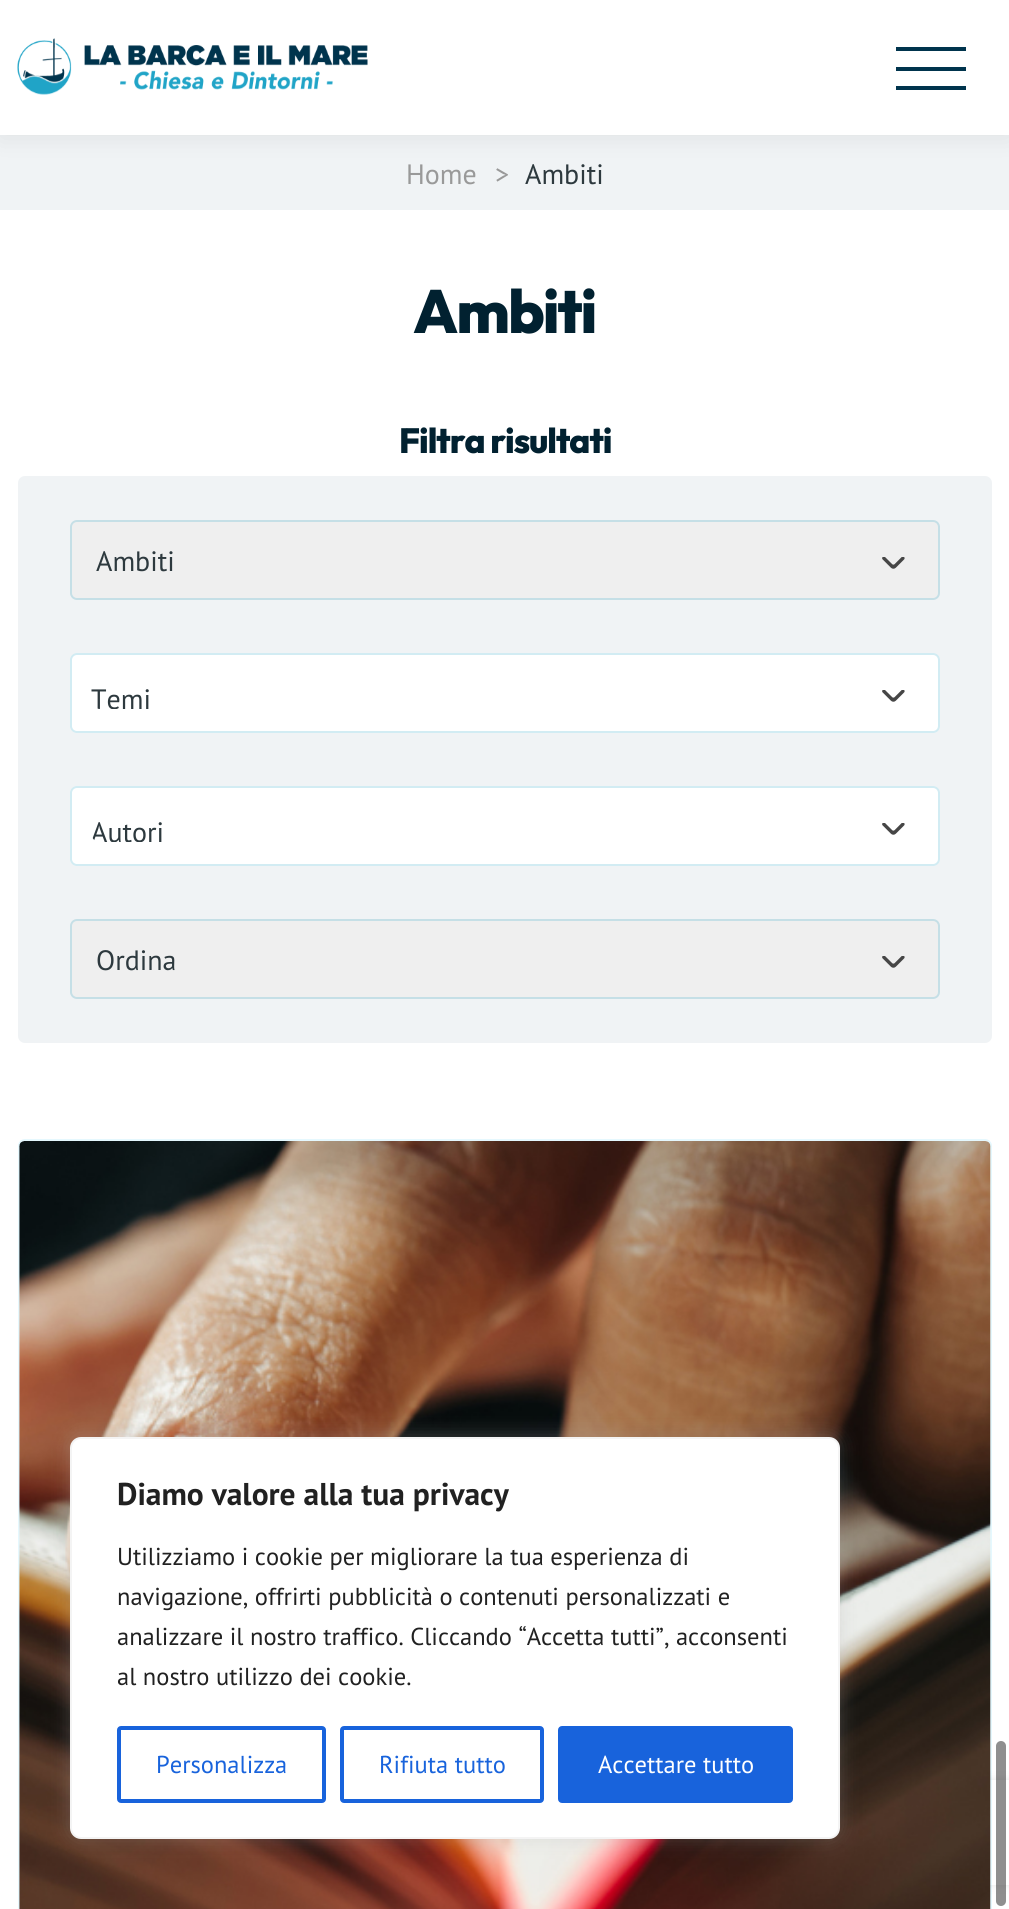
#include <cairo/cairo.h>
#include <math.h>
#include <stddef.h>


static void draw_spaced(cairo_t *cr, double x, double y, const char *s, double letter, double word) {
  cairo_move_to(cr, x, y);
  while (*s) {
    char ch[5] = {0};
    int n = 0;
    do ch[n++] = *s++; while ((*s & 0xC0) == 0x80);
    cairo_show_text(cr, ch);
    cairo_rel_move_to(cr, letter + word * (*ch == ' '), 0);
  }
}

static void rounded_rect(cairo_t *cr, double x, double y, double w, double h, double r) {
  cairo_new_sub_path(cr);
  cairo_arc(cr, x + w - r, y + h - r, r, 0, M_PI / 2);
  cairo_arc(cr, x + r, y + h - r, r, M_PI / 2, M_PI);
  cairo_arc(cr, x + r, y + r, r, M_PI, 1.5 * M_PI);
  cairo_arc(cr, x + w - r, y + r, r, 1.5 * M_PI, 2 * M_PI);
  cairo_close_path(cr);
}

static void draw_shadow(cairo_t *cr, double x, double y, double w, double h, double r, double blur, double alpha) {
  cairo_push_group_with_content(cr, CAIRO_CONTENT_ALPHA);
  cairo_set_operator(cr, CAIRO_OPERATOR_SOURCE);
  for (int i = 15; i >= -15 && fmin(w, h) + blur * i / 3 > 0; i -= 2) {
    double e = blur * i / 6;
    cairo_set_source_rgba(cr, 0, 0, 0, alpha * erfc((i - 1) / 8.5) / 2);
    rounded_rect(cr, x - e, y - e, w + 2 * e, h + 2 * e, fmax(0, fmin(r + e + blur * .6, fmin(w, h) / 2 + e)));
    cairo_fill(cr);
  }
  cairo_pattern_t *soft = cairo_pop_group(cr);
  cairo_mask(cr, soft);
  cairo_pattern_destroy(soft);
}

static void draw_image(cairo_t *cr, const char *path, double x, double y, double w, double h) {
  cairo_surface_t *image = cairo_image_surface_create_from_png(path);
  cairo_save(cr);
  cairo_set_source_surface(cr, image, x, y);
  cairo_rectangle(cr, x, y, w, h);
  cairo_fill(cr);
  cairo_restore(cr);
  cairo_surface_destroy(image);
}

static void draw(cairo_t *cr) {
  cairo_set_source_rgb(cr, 1, 1, 1);
  cairo_paint(cr);
  cairo_set_source_rgb(cr, 240 / 255.0, 243 / 255.0, 245 / 255.0);
  cairo_rectangle(cr, 0, 135, 1009, 75);
  cairo_fill(cr);
  cairo_set_source_rgb(cr, 0, 0, 0);
  draw_shadow(cr, 0, 4, 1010, 134, 0, 13, 0.07);
  cairo_set_source_rgb(cr, 1, 1, 1);
  cairo_rectangle(cr, 0, 0, 1009, 135);
  cairo_fill(cr);
  draw_image(cr, "images/1.png", 17, 38, 351, 57);
  cairo_set_source_rgb(cr, 0, 52 / 255.0, 77 / 255.0);
  cairo_rectangle(cr, 896, 47, 70, 4);
  cairo_fill(cr);
  cairo_rectangle(cr, 896, 67, 70, 4);
  cairo_fill(cr);
  cairo_rectangle(cr, 896, 86, 70, 4);
  cairo_fill(cr);
  cairo_set_source_rgb(cr, 240 / 255.0, 243 / 255.0, 245 / 255.0);
  rounded_rect(cr, 18, 476, 974, 567, 7);
  cairo_fill(cr);
  cairo_set_source_rgb(cr, 239 / 255.0, 239 / 255.0, 239 / 255.0);
  rounded_rect(cr, 70, 520, 870, 80, 7);
  cairo_fill(cr);
  draw_image(cr, "images/2.png", 882, 557, 23, 12);
  rounded_rect(cr, 71, 521, 868, 78, 6);
  cairo_set_source_rgba(cr, 32 / 255.0, 164 / 255.0, 199 / 255.0, 0.2);
  cairo_stroke(cr);
  cairo_set_source_rgb(cr, 1, 1, 1);
  rounded_rect(cr, 70, 653, 870, 80, 7);
  cairo_fill(cr);
  draw_image(cr, "images/3.png", 882, 690, 23, 12);
  rounded_rect(cr, 71, 654, 868, 78, 6);
  cairo_set_source_rgba(cr, 32 / 255.0, 164 / 255.0, 199 / 255.0, 0.2);
  cairo_stroke(cr);
  cairo_set_source_rgb(cr, 1, 1, 1);
  rounded_rect(cr, 70, 786, 870, 80, 7);
  cairo_fill(cr);
  draw_image(cr, "images/3.png", 882, 823, 23, 12);
  rounded_rect(cr, 71, 787, 868, 78, 6);
  cairo_set_source_rgba(cr, 32 / 255.0, 164 / 255.0, 199 / 255.0, 0.2);
  cairo_stroke(cr);
  cairo_set_source_rgb(cr, 239 / 255.0, 239 / 255.0, 239 / 255.0);
  rounded_rect(cr, 70, 919, 870, 80, 7);
  cairo_fill(cr);
  draw_image(cr, "images/2.png", 882, 956, 23, 12);
  rounded_rect(cr, 71, 920, 868, 78, 6);
  cairo_set_source_rgba(cr, 32 / 255.0, 164 / 255.0, 199 / 255.0, 0.2);
  cairo_stroke(cr);
  rounded_rect(cr, 19, 1140, 972, 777, 6);
  cairo_set_source_rgb(cr, 229 / 255.0, 248 / 255.0, 254 / 255.0);
  cairo_stroke(cr);
  cairo_save(cr);
  cairo_set_fill_rule(cr, CAIRO_FILL_RULE_EVEN_ODD);
  cairo_new_path(cr);
  cairo_move_to(cr, 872, 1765);
  cairo_line_to(cr, 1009, 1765);
  cairo_line_to(cr, 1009, 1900);
  cairo_line_to(cr, 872, 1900);
  cairo_close_path(cr);
  cairo_move_to(cr, 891, 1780);
  cairo_line_to(cr, 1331, 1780);
  cairo_curve_to(cr, 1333, 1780, 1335, 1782, 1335, 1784);
  cairo_line_to(cr, 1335, 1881);
  cairo_curve_to(cr, 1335, 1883, 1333, 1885, 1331, 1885);
  cairo_line_to(cr, 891, 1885);
  cairo_curve_to(cr, 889, 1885, 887, 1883, 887, 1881);
  cairo_line_to(cr, 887, 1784);
  cairo_curve_to(cr, 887, 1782, 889, 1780, 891, 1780);
  cairo_close_path(cr);
  cairo_clip(cr);
  cairo_set_source_rgb(cr, 128 / 255.0, 128 / 255.0, 128 / 255.0);
  draw_shadow(cr, 887, 1780, 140, 105, 4, 4.5, 0.2);
  cairo_restore(cr);
  draw_image(cr, "images/4.png", 19, 1141, 972, 768);
  cairo_set_source_rgb(cr, 172 / 255.0, 171 / 255.0, 171 / 255.0);
  draw_shadow(cr, 70, 1435, 770, 403, 11, 9, 0.3);
  cairo_set_source_rgb(cr, 1, 1, 1);
  rounded_rect(cr, 71, 1438, 768, 400, 10);
  cairo_fill_preserve(cr);
  cairo_set_source_rgb(cr, 244 / 255.0, 244 / 255.0, 244 / 255.0);
  cairo_stroke(cr);
  rounded_rect(cr, 119, 1728, 205, 73, 2);
  cairo_set_source_rgb(cr, 24 / 255.0, 99 / 255.0, 220 / 255.0);
  cairo_set_line_width(cr, 4);
  cairo_stroke(cr);
  rounded_rect(cr, 342, 1728, 200, 73, 2);
  cairo_stroke(cr);
  rounded_rect(cr, 560, 1728, 231, 73, 2);
  cairo_fill_preserve(cr);
  cairo_stroke(cr);
  cairo_set_source_rgba(cr, 0, 0, 0, 0.44);
  rounded_rect(cr, 996, 1741, 10, 165, 5);
  cairo_fill(cr);
  cairo_select_font_face(cr, "PT Sans", CAIRO_FONT_SLANT_NORMAL, CAIRO_FONT_WEIGHT_NORMAL);
  cairo_set_font_size(cr, 28);
  cairo_set_source_rgb(cr, 153 / 255.0, 153 / 255.0, 153 / 255.0);
  cairo_move_to(cr, 406, 184);
  cairo_show_text(cr, "Home");
  cairo_move_to(cr, 495, 184);
  cairo_show_text(cr, ">");
  cairo_set_source_rgb(cr, 45 / 255.0, 57 / 255.0, 62 / 255.0);
  cairo_move_to(cr, 525, 184);
  cairo_show_text(cr, "Ambiti");
  cairo_select_font_face(cr, "Outfit ExtraBold", CAIRO_FONT_SLANT_NORMAL, CAIRO_FONT_WEIGHT_NORMAL);
  cairo_set_font_size(cr, 61);
  cairo_set_source_rgb(cr, 1 / 255.0, 33 / 255.0, 48 / 255.0);
  draw_spaced(cr, 413, 333, "Ambiti", -2, 0);
  cairo_set_font_size(cr, 35);
  draw_spaced(cr, 399, 453, "Filtra risultati", -1, 0);
  cairo_select_font_face(cr, "PT Sans", CAIRO_FONT_SLANT_NORMAL, CAIRO_FONT_WEIGHT_NORMAL);
  cairo_set_font_size(cr, 28);
  cairo_set_source_rgb(cr, 45 / 255.0, 57 / 255.0, 62 / 255.0);
  cairo_move_to(cr, 96, 571);
  cairo_show_text(cr, "Ambiti");
  cairo_save(cr);
  cairo_new_path(cr);
  cairo_move_to(cr, 100, 677);
  cairo_line_to(cr, 933, 677);
  cairo_line_to(cr, 933, 709);
  cairo_line_to(cr, 100, 709);
  cairo_curve_to(cr, 95, 709, 91, 705, 91, 700);
  cairo_line_to(cr, 91, 686);
  cairo_curve_to(cr, 91, 681, 95, 677, 100, 677);
  cairo_close_path(cr);
  cairo_clip(cr);
  cairo_move_to(cr, 91, 709);
  cairo_show_text(cr, "Temi");
  cairo_restore(cr);
  cairo_save(cr);
  cairo_new_path(cr);
  cairo_move_to(cr, 100, 810);
  cairo_line_to(cr, 933, 810);
  cairo_line_to(cr, 933, 842);
  cairo_line_to(cr, 100, 842);
  cairo_curve_to(cr, 95, 842, 91, 838, 91, 833);
  cairo_line_to(cr, 91, 819);
  cairo_curve_to(cr, 91, 814, 95, 810, 100, 810);
  cairo_close_path(cr);
  cairo_clip(cr);
  cairo_move_to(cr, 91, 842);
  cairo_show_text(cr, "Autori");
  cairo_restore(cr);
  cairo_move_to(cr, 96, 970);
  cairo_show_text(cr, "Ordina");
  cairo_select_font_face(cr, "PT Sans", CAIRO_FONT_SLANT_NORMAL, CAIRO_FONT_WEIGHT_BOLD);
  cairo_set_font_size(cr, 31.5);
  cairo_set_source_rgb(cr, 33 / 255.0, 33 / 255.0, 33 / 255.0);
  cairo_move_to(cr, 117, 1505);
  cairo_show_text(cr, "Diamo valore alla tua privacy");
  cairo_select_font_face(cr, "PT Sans", CAIRO_FONT_SLANT_NORMAL, CAIRO_FONT_WEIGHT_NORMAL);
  cairo_set_font_size(cr, 24.5);
  cairo_move_to(cr, 117, 1565);
  cairo_show_text(cr, "Utilizziamo i cookie per migliorare la tua esperienza di");
  cairo_move_to(cr, 117, 1605);
  cairo_show_text(cr, "navigazione, offrirti pubblicità o contenuti personalizzati e");
  cairo_move_to(cr, 117, 1645);
  cairo_show_text(cr, "analizzare il nostro traffico. Cliccando “Accetta tutti”, acconsenti");
  cairo_move_to(cr, 117, 1685);
  cairo_show_text(cr, "al nostro utilizzo dei cookie.");
  cairo_set_source_rgb(cr, 24 / 255.0, 99 / 255.0, 220 / 255.0);
  cairo_move_to(cr, 156, 1773);
  cairo_show_text(cr, "Personalizza");
  cairo_move_to(cr, 379, 1773);
  cairo_show_text(cr, "Rifiuta tutto");
  cairo_set_source_rgb(cr, 1, 1, 1);
  cairo_move_to(cr, 598, 1773);
  cairo_show_text(cr, "Accettare tutto");
}

int main(void) {
  cairo_surface_t *surface = cairo_image_surface_create(CAIRO_FORMAT_RGB24, 1009, 1909);
  cairo_t *cr = cairo_create(surface);
  cairo_font_options_t *options = cairo_font_options_create();
  cairo_font_options_set_hint_metrics(options, CAIRO_HINT_METRICS_OFF);
  cairo_font_options_set_hint_style(options, CAIRO_HINT_STYLE_NONE);
  cairo_set_font_options(cr, options);
  cairo_set_miter_limit(cr, 4);
  draw(cr);
  cairo_surface_write_to_png(surface, "out.png");
  cairo_font_options_destroy(options);
  cairo_destroy(cr);
  cairo_surface_destroy(surface);
  return 0;
}
